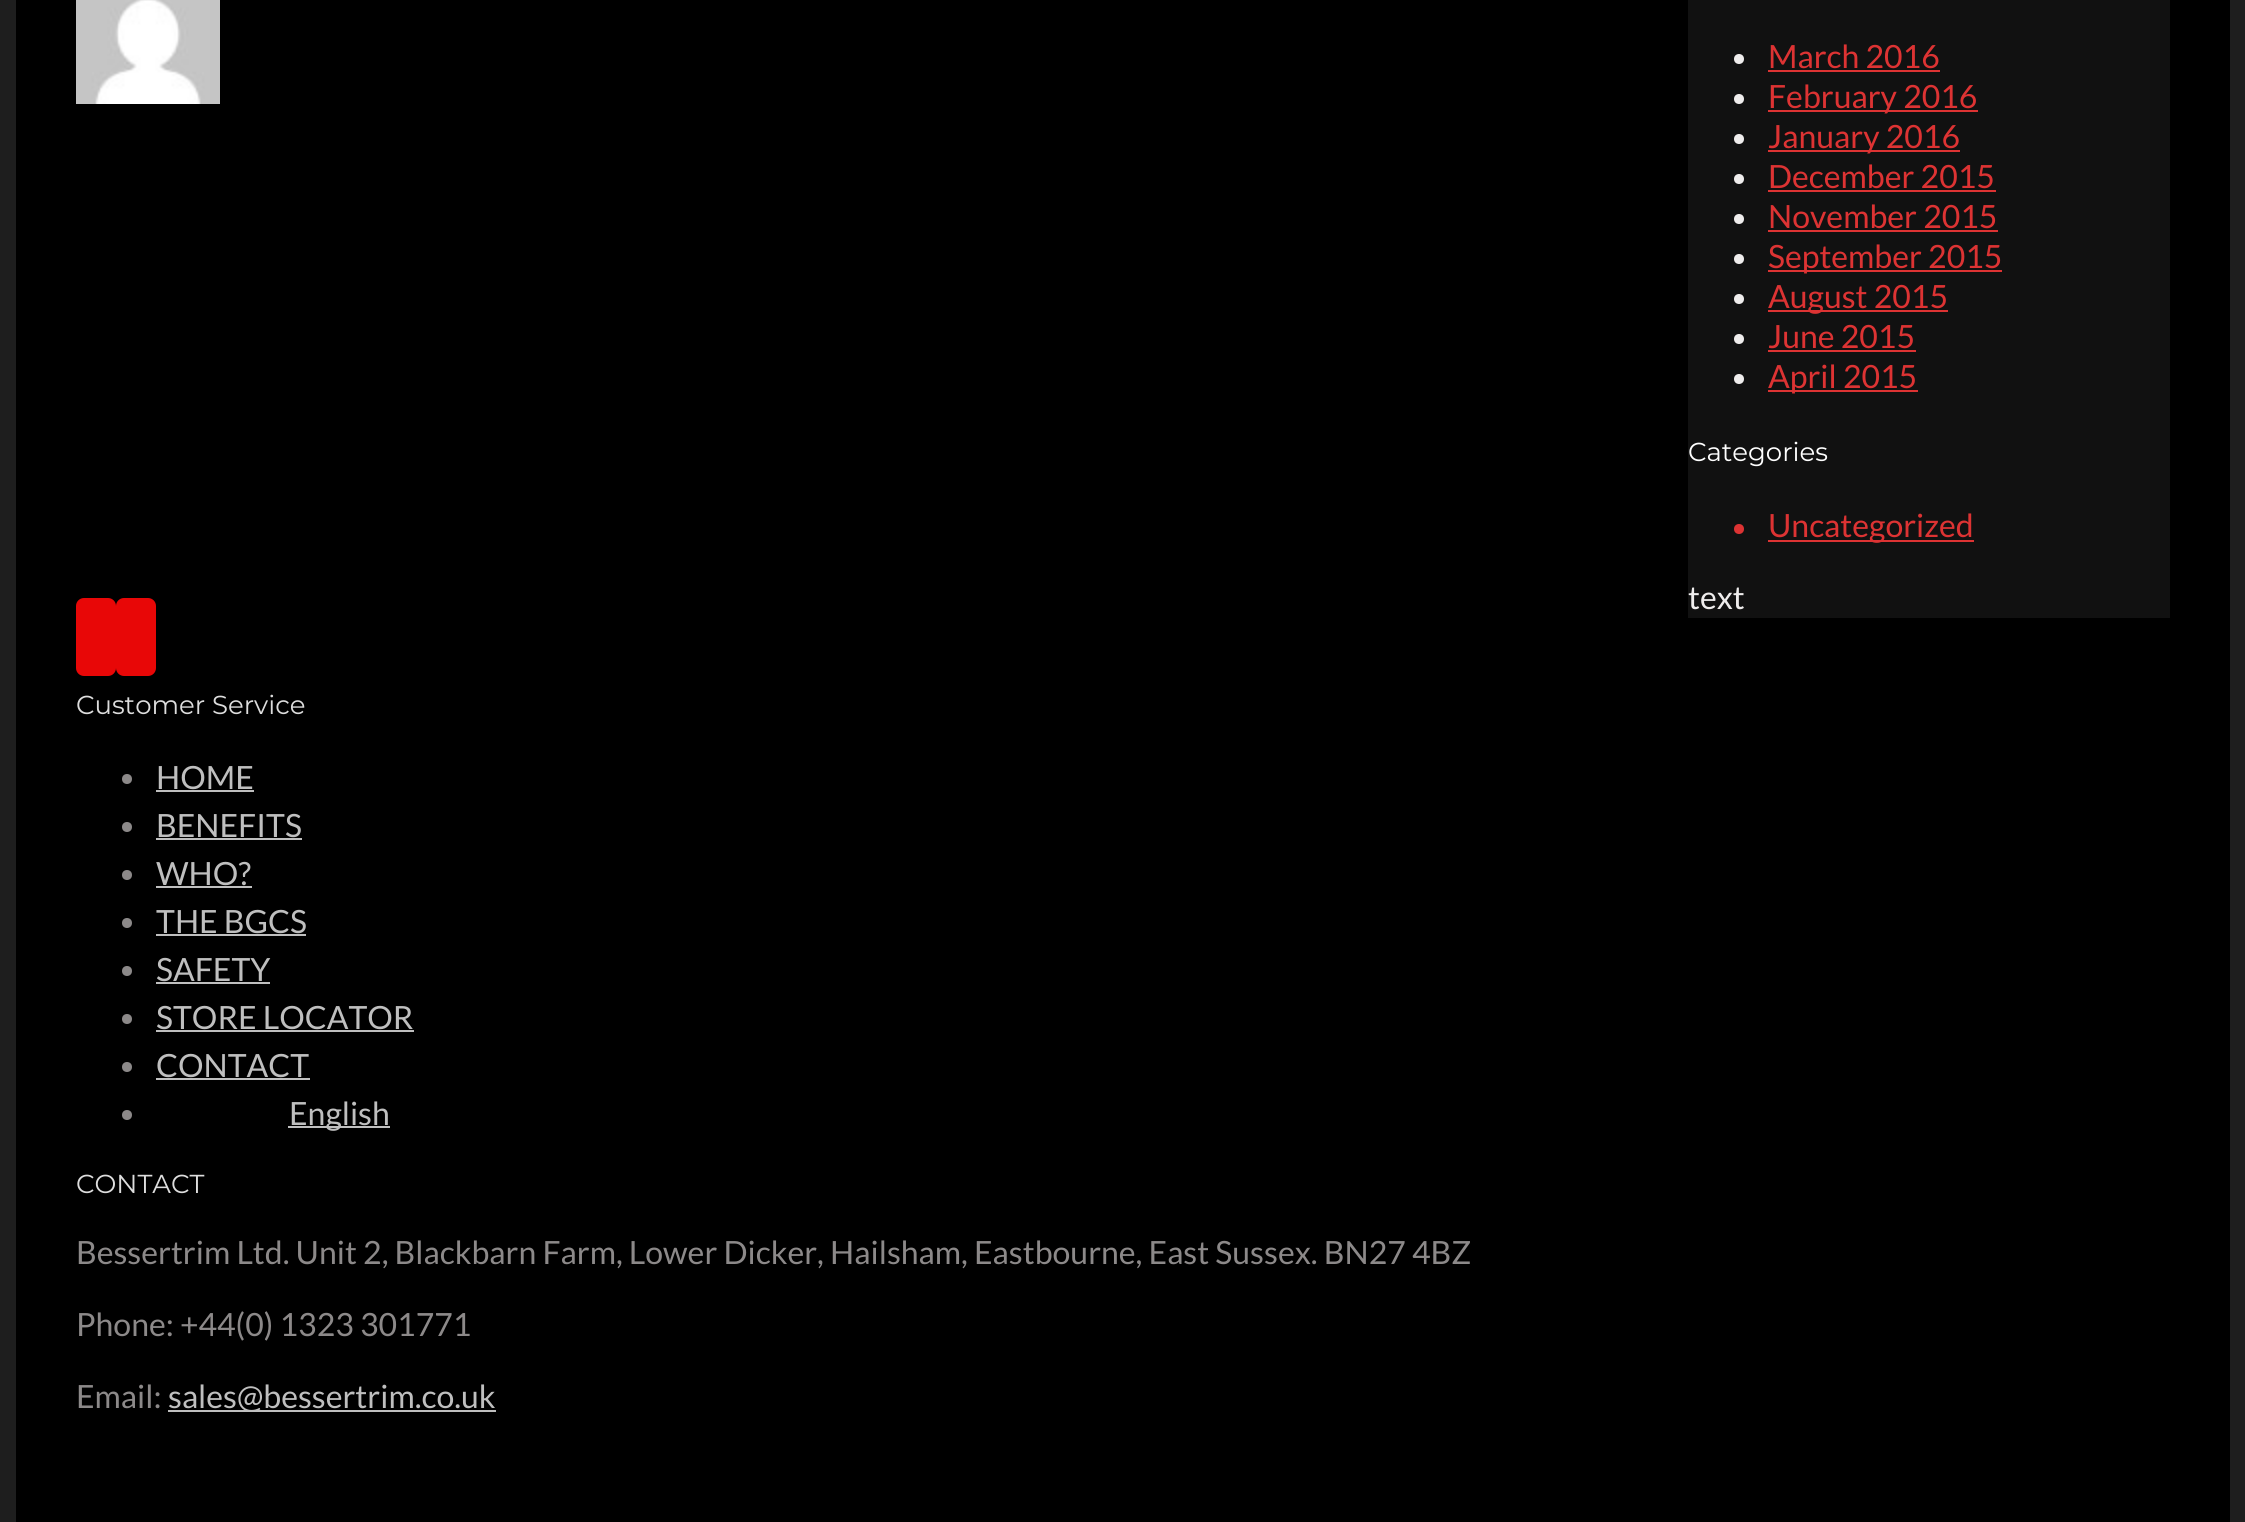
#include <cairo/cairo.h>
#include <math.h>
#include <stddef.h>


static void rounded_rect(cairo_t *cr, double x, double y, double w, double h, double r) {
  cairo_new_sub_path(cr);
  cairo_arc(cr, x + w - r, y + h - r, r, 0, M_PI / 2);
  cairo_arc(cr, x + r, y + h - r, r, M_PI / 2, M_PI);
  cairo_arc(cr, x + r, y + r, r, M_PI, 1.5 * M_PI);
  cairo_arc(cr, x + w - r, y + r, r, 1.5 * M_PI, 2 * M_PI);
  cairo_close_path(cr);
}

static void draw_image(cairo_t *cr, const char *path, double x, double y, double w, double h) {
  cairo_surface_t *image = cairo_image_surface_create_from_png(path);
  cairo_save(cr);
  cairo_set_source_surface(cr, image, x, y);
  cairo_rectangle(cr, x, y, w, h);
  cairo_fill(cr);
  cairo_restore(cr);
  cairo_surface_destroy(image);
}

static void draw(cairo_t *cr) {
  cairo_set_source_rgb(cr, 30 / 255.0, 30 / 255.0, 30 / 255.0);
  cairo_paint(cr);
  cairo_set_source_rgb(cr, 0, 0, 0);
  cairo_rectangle(cr, 16, 0, 2214, 1522);
  cairo_fill(cr);
  draw_image(cr, "images/1.png", 76, 0, 144, 104);
  cairo_set_source_rgb(cr, 17 / 255.0, 17 / 255.0, 17 / 255.0);
  cairo_rectangle(cr, 1688, 0, 482, 618);
  cairo_fill(cr);
  cairo_set_source_rgb(cr, 239 / 255.0, 237 / 255.0, 237 / 255.0);
  cairo_arc(cr, 1739, 59, 5, 0, 2 * M_PI);
  cairo_fill(cr);
  cairo_set_source_rgb(cr, 221 / 255.0, 51 / 255.0, 51 / 255.0);
  cairo_rectangle(cr, 1768, 70, 172, 2);
  cairo_fill(cr);
  cairo_set_source_rgb(cr, 239 / 255.0, 237 / 255.0, 237 / 255.0);
  cairo_arc(cr, 1739, 99, 5, 0, 2 * M_PI);
  cairo_fill(cr);
  cairo_set_source_rgb(cr, 221 / 255.0, 51 / 255.0, 51 / 255.0);
  cairo_rectangle(cr, 1768, 110, 210, 2);
  cairo_fill(cr);
  cairo_set_source_rgb(cr, 239 / 255.0, 237 / 255.0, 237 / 255.0);
  cairo_arc(cr, 1739, 139, 5, 0, 2 * M_PI);
  cairo_fill(cr);
  cairo_set_source_rgb(cr, 221 / 255.0, 51 / 255.0, 51 / 255.0);
  cairo_rectangle(cr, 1768, 150, 192, 2);
  cairo_fill(cr);
  cairo_set_source_rgb(cr, 239 / 255.0, 237 / 255.0, 237 / 255.0);
  cairo_arc(cr, 1739, 179, 5, 0, 2 * M_PI);
  cairo_fill(cr);
  cairo_set_source_rgb(cr, 221 / 255.0, 51 / 255.0, 51 / 255.0);
  cairo_rectangle(cr, 1768, 190, 228, 2);
  cairo_fill(cr);
  cairo_set_source_rgb(cr, 239 / 255.0, 237 / 255.0, 237 / 255.0);
  cairo_arc(cr, 1739, 219, 5, 0, 2 * M_PI);
  cairo_fill(cr);
  cairo_set_source_rgb(cr, 221 / 255.0, 51 / 255.0, 51 / 255.0);
  cairo_rectangle(cr, 1768, 230, 230, 2);
  cairo_fill(cr);
  cairo_set_source_rgb(cr, 239 / 255.0, 237 / 255.0, 237 / 255.0);
  cairo_arc(cr, 1739, 259, 5, 0, 2 * M_PI);
  cairo_fill(cr);
  cairo_set_source_rgb(cr, 221 / 255.0, 51 / 255.0, 51 / 255.0);
  cairo_rectangle(cr, 1768, 270, 234, 2);
  cairo_fill(cr);
  cairo_set_source_rgb(cr, 239 / 255.0, 237 / 255.0, 237 / 255.0);
  cairo_arc(cr, 1739, 299, 5, 0, 2 * M_PI);
  cairo_fill(cr);
  cairo_set_source_rgb(cr, 221 / 255.0, 51 / 255.0, 51 / 255.0);
  cairo_rectangle(cr, 1768, 310, 180, 2);
  cairo_fill(cr);
  cairo_set_source_rgb(cr, 239 / 255.0, 237 / 255.0, 237 / 255.0);
  cairo_arc(cr, 1739, 339, 5, 0, 2 * M_PI);
  cairo_fill(cr);
  cairo_set_source_rgb(cr, 221 / 255.0, 51 / 255.0, 51 / 255.0);
  cairo_rectangle(cr, 1768, 350, 148, 2);
  cairo_fill(cr);
  cairo_set_source_rgb(cr, 239 / 255.0, 237 / 255.0, 237 / 255.0);
  cairo_arc(cr, 1739, 379, 5, 0, 2 * M_PI);
  cairo_fill(cr);
  cairo_set_source_rgb(cr, 221 / 255.0, 51 / 255.0, 51 / 255.0);
  cairo_rectangle(cr, 1768, 390, 150, 2);
  cairo_fill(cr);
  cairo_arc(cr, 1739, 529, 5, 0, 2 * M_PI);
  cairo_fill(cr);
  cairo_rectangle(cr, 1768, 540, 206, 2);
  cairo_fill(cr);
  cairo_set_source_rgb(cr, 232 / 255.0, 7 / 255.0, 7 / 255.0);
  rounded_rect(cr, 76, 598, 40, 78, 8);
  cairo_fill(cr);
  rounded_rect(cr, 116, 598, 40, 78, 8);
  cairo_fill(cr);
  cairo_set_source_rgb(cr, 140 / 255.0, 137 / 255.0, 137 / 255.0);
  cairo_arc(cr, 127, 779, 5, 0, 2 * M_PI);
  cairo_fill(cr);
  cairo_set_source_rgb(cr, 191 / 255.0, 191 / 255.0, 191 / 255.0);
  cairo_rectangle(cr, 156, 790, 98, 2);
  cairo_fill(cr);
  cairo_set_source_rgb(cr, 140 / 255.0, 137 / 255.0, 137 / 255.0);
  cairo_arc(cr, 127, 827, 5, 0, 2 * M_PI);
  cairo_fill(cr);
  cairo_set_source_rgb(cr, 191 / 255.0, 191 / 255.0, 191 / 255.0);
  cairo_rectangle(cr, 156, 838, 146, 2);
  cairo_fill(cr);
  cairo_set_source_rgb(cr, 140 / 255.0, 137 / 255.0, 137 / 255.0);
  cairo_arc(cr, 127, 875, 5, 0, 2 * M_PI);
  cairo_fill(cr);
  cairo_set_source_rgb(cr, 191 / 255.0, 191 / 255.0, 191 / 255.0);
  cairo_rectangle(cr, 156, 886, 96, 2);
  cairo_fill(cr);
  cairo_set_source_rgb(cr, 140 / 255.0, 137 / 255.0, 137 / 255.0);
  cairo_arc(cr, 127, 923, 5, 0, 2 * M_PI);
  cairo_fill(cr);
  cairo_set_source_rgb(cr, 191 / 255.0, 191 / 255.0, 191 / 255.0);
  cairo_rectangle(cr, 156, 934, 150, 2);
  cairo_fill(cr);
  cairo_set_source_rgb(cr, 140 / 255.0, 137 / 255.0, 137 / 255.0);
  cairo_arc(cr, 127, 971, 5, 0, 2 * M_PI);
  cairo_fill(cr);
  cairo_set_source_rgb(cr, 191 / 255.0, 191 / 255.0, 191 / 255.0);
  cairo_rectangle(cr, 156, 982, 114, 2);
  cairo_fill(cr);
  cairo_set_source_rgb(cr, 140 / 255.0, 137 / 255.0, 137 / 255.0);
  cairo_arc(cr, 127, 1019, 5, 0, 2 * M_PI);
  cairo_fill(cr);
  cairo_set_source_rgb(cr, 191 / 255.0, 191 / 255.0, 191 / 255.0);
  cairo_rectangle(cr, 156, 1030, 258, 2);
  cairo_fill(cr);
  cairo_set_source_rgb(cr, 140 / 255.0, 137 / 255.0, 137 / 255.0);
  cairo_arc(cr, 127, 1067, 5, 0, 2 * M_PI);
  cairo_fill(cr);
  cairo_set_source_rgb(cr, 191 / 255.0, 191 / 255.0, 191 / 255.0);
  cairo_rectangle(cr, 156, 1078, 154, 2);
  cairo_fill(cr);
  cairo_set_source_rgb(cr, 140 / 255.0, 137 / 255.0, 137 / 255.0);
  cairo_arc(cr, 127, 1115, 5, 0, 2 * M_PI);
  cairo_fill(cr);
  cairo_set_source_rgb(cr, 191 / 255.0, 191 / 255.0, 191 / 255.0);
  cairo_rectangle(cr, 288, 1126, 102, 2);
  cairo_fill(cr);
  cairo_rectangle(cr, 168, 1410, 328, 2);
  cairo_fill(cr);
  cairo_select_font_face(cr, "Lato", CAIRO_FONT_SLANT_NORMAL, CAIRO_FONT_WEIGHT_NORMAL);
  cairo_set_font_size(cr, 32);
  cairo_set_source_rgb(cr, 221 / 255.0, 51 / 255.0, 51 / 255.0);
  cairo_move_to(cr, 1768, 68);
  cairo_show_text(cr, "March 2016");
  cairo_move_to(cr, 1768, 108);
  cairo_show_text(cr, "February 2016");
  cairo_move_to(cr, 1768, 148);
  cairo_show_text(cr, "January 2016");
  cairo_move_to(cr, 1768, 188);
  cairo_show_text(cr, "December 2015");
  cairo_move_to(cr, 1768, 228);
  cairo_show_text(cr, "November 2015");
  cairo_move_to(cr, 1768, 268);
  cairo_show_text(cr, "September 2015");
  cairo_move_to(cr, 1768, 308);
  cairo_show_text(cr, "August 2015");
  cairo_move_to(cr, 1768, 348);
  cairo_show_text(cr, "June 2015");
  cairo_move_to(cr, 1768, 388);
  cairo_show_text(cr, "April 2015");
  cairo_select_font_face(cr, "Montserrat", CAIRO_FONT_SLANT_NORMAL, CAIRO_FONT_WEIGHT_NORMAL);
  cairo_set_font_size(cr, 26);
  cairo_set_source_rgb(cr, 1, 1, 1);
  cairo_move_to(cr, 1688, 461);
  cairo_show_text(cr, "Categories");
  cairo_select_font_face(cr, "Lato", CAIRO_FONT_SLANT_NORMAL, CAIRO_FONT_WEIGHT_NORMAL);
  cairo_set_font_size(cr, 32);
  cairo_set_source_rgb(cr, 221 / 255.0, 51 / 255.0, 51 / 255.0);
  cairo_move_to(cr, 1768, 537);
  cairo_show_text(cr, "Uncategorized");
  cairo_set_source_rgb(cr, 239 / 255.0, 237 / 255.0, 237 / 255.0);
  cairo_move_to(cr, 1688, 609);
  cairo_show_text(cr, "text");
  cairo_select_font_face(cr, "Montserrat", CAIRO_FONT_SLANT_NORMAL, CAIRO_FONT_WEIGHT_NORMAL);
  cairo_set_font_size(cr, 26);
  cairo_set_source_rgb(cr, 221 / 255.0, 221 / 255.0, 221 / 255.0);
  cairo_move_to(cr, 76, 714);
  cairo_show_text(cr, "Customer Service");
  cairo_select_font_face(cr, "Lato", CAIRO_FONT_SLANT_NORMAL, CAIRO_FONT_WEIGHT_NORMAL);
  cairo_set_font_size(cr, 32);
  cairo_set_source_rgb(cr, 191 / 255.0, 191 / 255.0, 191 / 255.0);
  cairo_move_to(cr, 156, 789);
  cairo_show_text(cr, "HOME");
  cairo_move_to(cr, 156, 837);
  cairo_show_text(cr, "BENEFITS");
  cairo_move_to(cr, 156, 885);
  cairo_show_text(cr, "WHO?");
  cairo_move_to(cr, 156, 933);
  cairo_show_text(cr, "THE BGCS");
  cairo_move_to(cr, 156, 981);
  cairo_show_text(cr, "SAFETY");
  cairo_move_to(cr, 156, 1029);
  cairo_show_text(cr, "STORE LOCATOR");
  cairo_move_to(cr, 156, 1077);
  cairo_show_text(cr, "CONTACT");
  cairo_move_to(cr, 289, 1125);
  cairo_show_text(cr, "English");
  cairo_select_font_face(cr, "Montserrat", CAIRO_FONT_SLANT_NORMAL, CAIRO_FONT_WEIGHT_NORMAL);
  cairo_set_font_size(cr, 26);
  cairo_set_source_rgb(cr, 221 / 255.0, 221 / 255.0, 221 / 255.0);
  cairo_move_to(cr, 76, 1193);
  cairo_show_text(cr, "CONTACT");
  cairo_select_font_face(cr, "Lato", CAIRO_FONT_SLANT_NORMAL, CAIRO_FONT_WEIGHT_NORMAL);
  cairo_set_font_size(cr, 32);
  cairo_set_source_rgb(cr, 140 / 255.0, 137 / 255.0, 137 / 255.0);
  cairo_move_to(cr, 76, 1264);
  cairo_show_text(cr, "Bessertrim Ltd. Unit 2, Blackbarn Farm, Lower Dicker, Hailsham, Eastbourne, East Sussex. BN27 4BZ");
  cairo_move_to(cr, 76, 1336);
  cairo_show_text(cr, "Phone: +44(0) 1323 301771");
  cairo_move_to(cr, 76, 1408);
  cairo_show_text(cr, "Email:");
  cairo_set_source_rgb(cr, 191 / 255.0, 191 / 255.0, 191 / 255.0);
  cairo_move_to(cr, 168, 1408);
  cairo_show_text(cr, "sales@bessertrim.co.uk");
}

int main(void) {
  cairo_surface_t *surface = cairo_image_surface_create(CAIRO_FORMAT_RGB24, 2245, 1522);
  cairo_t *cr = cairo_create(surface);
  cairo_font_options_t *options = cairo_font_options_create();
  cairo_font_options_set_hint_metrics(options, CAIRO_HINT_METRICS_OFF);
  cairo_font_options_set_hint_style(options, CAIRO_HINT_STYLE_NONE);
  cairo_set_font_options(cr, options);
  cairo_set_miter_limit(cr, 4);
  draw(cr);
  cairo_surface_write_to_png(surface, "out.png");
  cairo_font_options_destroy(options);
  cairo_destroy(cr);
  cairo_surface_destroy(surface);
  return 0;
}
